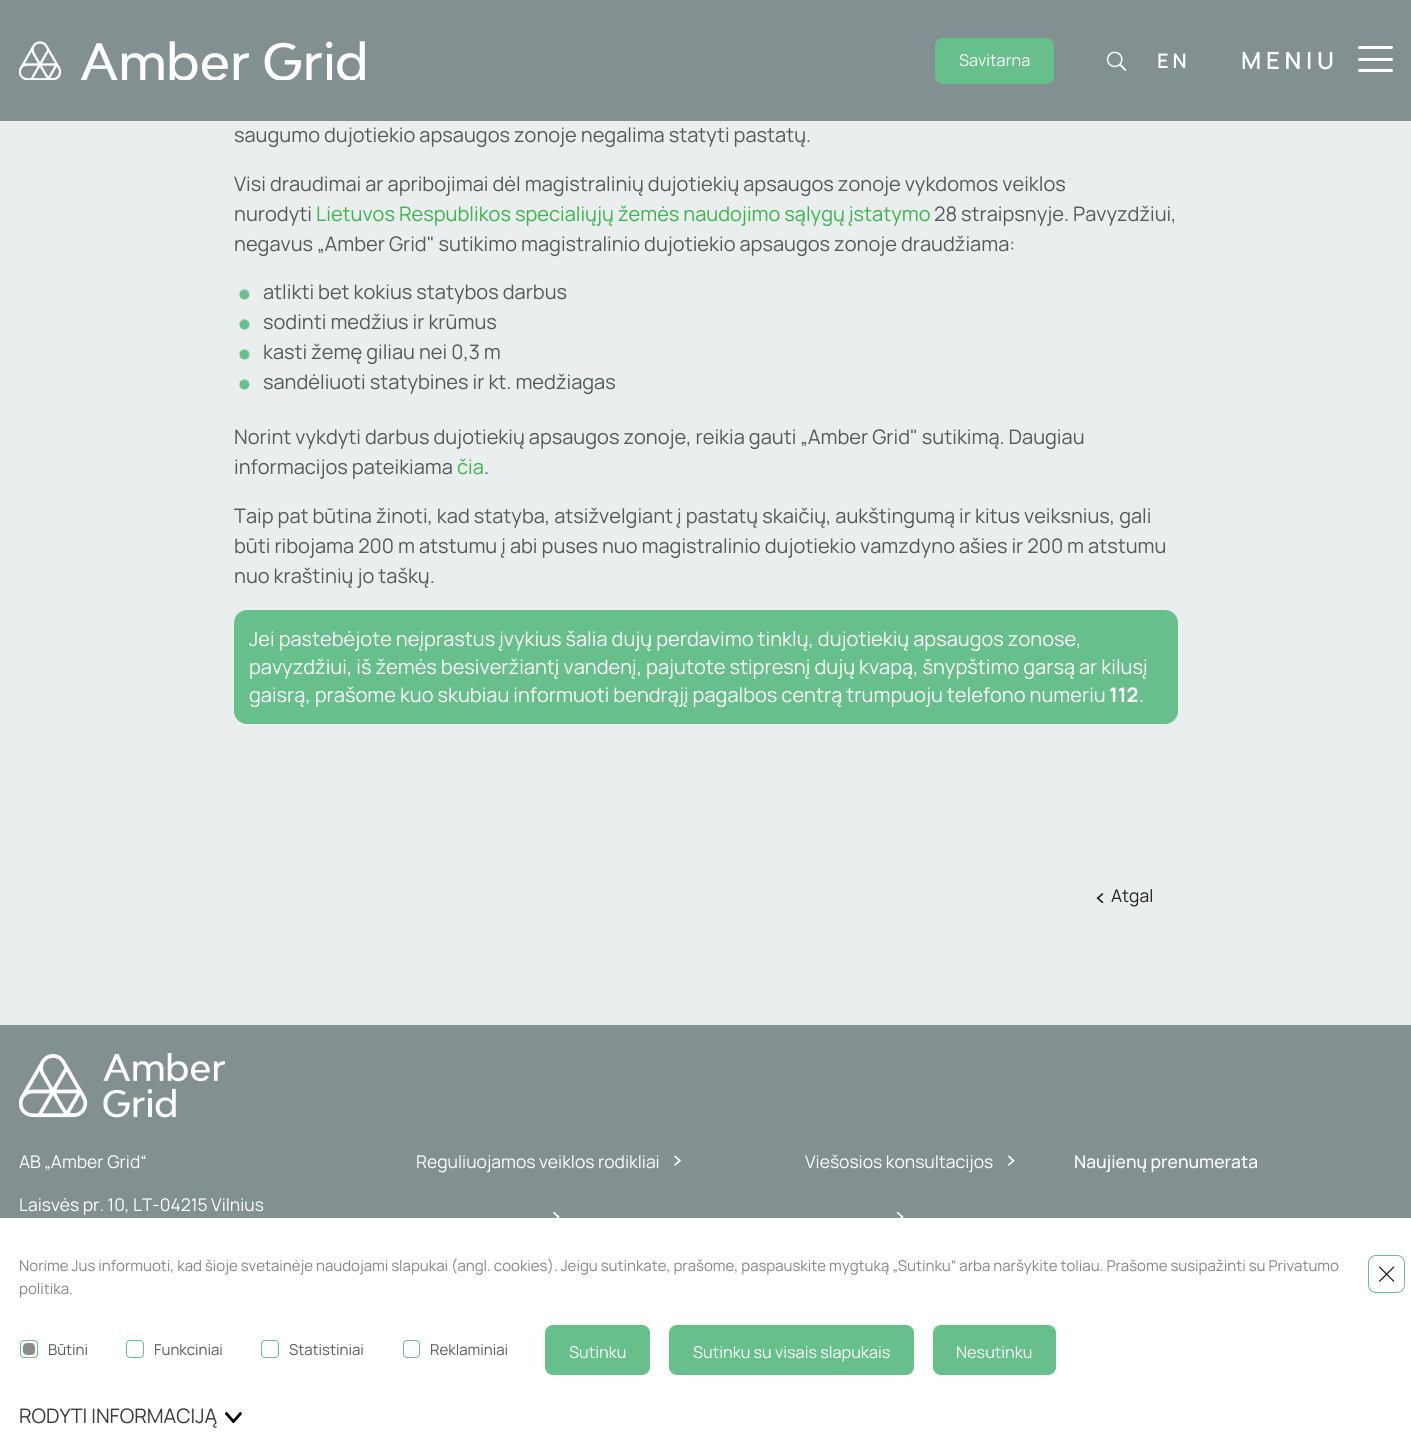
#include <cairo/cairo.h>
#include <math.h>
#include <stddef.h>


static void draw_spaced(cairo_t *cr, double x, double y, const char *s, double letter, double word) {
  cairo_move_to(cr, x, y);
  while (*s) {
    char ch[5] = {0};
    int n = 0;
    do ch[n++] = *s++; while ((*s & 0xC0) == 0x80);
    cairo_show_text(cr, ch);
    cairo_rel_move_to(cr, letter + word * (*ch == ' '), 0);
  }
}

static void rounded_rect(cairo_t *cr, double x, double y, double w, double h, double r) {
  cairo_new_sub_path(cr);
  cairo_arc(cr, x + w - r, y + h - r, r, 0, M_PI / 2);
  cairo_arc(cr, x + r, y + h - r, r, M_PI / 2, M_PI);
  cairo_arc(cr, x + r, y + r, r, M_PI, 1.5 * M_PI);
  cairo_arc(cr, x + w - r, y + r, r, 1.5 * M_PI, 2 * M_PI);
  cairo_close_path(cr);
}

static void draw_image(cairo_t *cr, const char *path, double x, double y, double w, double h) {
  cairo_surface_t *image = cairo_image_surface_create_from_png(path);
  cairo_save(cr);
  cairo_set_source_surface(cr, image, x, y);
  cairo_rectangle(cr, x, y, w, h);
  cairo_fill(cr);
  cairo_restore(cr);
  cairo_surface_destroy(image);
}

static void draw(cairo_t *cr) {
  cairo_set_source_rgb(cr, 234 / 255.0, 238 / 255.0, 239 / 255.0);
  cairo_paint(cr);
  cairo_set_source_rgb(cr, 131 / 255.0, 144 / 255.0, 145 / 255.0);
  cairo_rectangle(cr, 0, 0, 1411, 121);
  cairo_fill(cr);
  draw_image(cr, "images/1.png", 19, 41, 346, 39);
  cairo_set_source_rgb(cr, 103 / 255.0, 192 / 255.0, 139 / 255.0);
  rounded_rect(cr, 935.5, 38.5, 118, 45, 7.5);
  cairo_fill_preserve(cr);
  cairo_set_line_width(cr, 1);
  cairo_stroke(cr);
  draw_image(cr, "images/2.png", 1106, 51, 21, 20);
  cairo_set_source_rgb(cr, 1, 1, 1);
  rounded_rect(cr, 1358, 46, 35, 3, 1.5);
  cairo_fill(cr);
  rounded_rect(cr, 1358, 58, 35, 3, 1.5);
  cairo_fill(cr);
  rounded_rect(cr, 1358, 69, 35, 3, 1.5);
  cairo_fill(cr);
  draw_image(cr, "images/3.png", 238, 289, 12, 12);
  draw_image(cr, "images/3.png", 238, 319, 12, 12);
  draw_image(cr, "images/3.png", 238, 349, 12, 12);
  draw_image(cr, "images/3.png", 238, 379, 12, 12);
  cairo_set_source_rgb(cr, 103 / 255.0, 192 / 255.0, 139 / 255.0);
  rounded_rect(cr, 234, 610, 944, 114, 13);
  cairo_fill(cr);
  draw_image(cr, "images/4.png", 1096, 893, 8, 11);
  cairo_set_source_rgb(cr, 131 / 255.0, 144 / 255.0, 145 / 255.0);
  cairo_rectangle(cr, 0, 1025, 1411, 193);
  cairo_fill(cr);
  draw_image(cr, "images/5.png", 19, 1053, 206, 65);
  draw_image(cr, "images/6.png", 674, 1155, 7, 11);
  draw_image(cr, "images/7.png", 1008, 1155, 7, 11);
  draw_image(cr, "images/8.png", 553, 1211, 7, 7);
  draw_image(cr, "images/9.png", 896, 1211, 8, 7);
  cairo_set_source_rgb(cr, 1, 1, 1);
  cairo_rectangle(cr, 0, 1218, 1411, 237);
  cairo_fill(cr);
  rounded_rect(cr, 1368.5, 1255.5, 36, 37, 7.5);
  cairo_set_source_rgb(cr, 103 / 255.0, 192 / 255.0, 139 / 255.0);
  cairo_stroke(cr);
  draw_image(cr, "images/10.png", 1379, 1266, 16, 16);
  rounded_rect(cr, 20.5, 1340.5, 17, 17, 3.5);
  cairo_stroke(cr);
  cairo_set_source_rgb(cr, 139 / 255.0, 139 / 255.0, 139 / 255.0);
  rounded_rect(cr, 23, 1343, 12, 12, 4);
  cairo_fill(cr);
  rounded_rect(cr, 126.5, 1340.5, 17, 17, 3.5);
  cairo_set_source_rgb(cr, 103 / 255.0, 192 / 255.0, 139 / 255.0);
  cairo_stroke(cr);
  rounded_rect(cr, 261.5, 1340.5, 17, 17, 3.5);
  cairo_stroke(cr);
  rounded_rect(cr, 403.5, 1340.5, 16, 17, 3.5);
  cairo_stroke(cr);
  rounded_rect(cr, 545.5, 1325.5, 104, 49, 7.5);
  cairo_fill_preserve(cr);
  cairo_stroke(cr);
  rounded_rect(cr, 669.5, 1325.5, 244, 49, 7.5);
  cairo_fill_preserve(cr);
  cairo_stroke(cr);
  rounded_rect(cr, 933.5, 1325.5, 122, 49, 7.5);
  cairo_fill_preserve(cr);
  cairo_stroke(cr);
  draw_image(cr, "images/11.png", 225, 1412, 17, 12);
  cairo_select_font_face(cr, "Manrope", CAIRO_FONT_SLANT_NORMAL, CAIRO_FONT_WEIGHT_NORMAL);
  cairo_set_font_size(cr, 16.25);
  cairo_set_source_rgb(cr, 1, 1, 1);
  cairo_move_to(cr, 959, 66);
  cairo_show_text(cr, "Savitarna");
  cairo_select_font_face(cr, "Manrope SemiBold", CAIRO_FONT_SLANT_NORMAL, CAIRO_FONT_WEIGHT_NORMAL);
  cairo_set_font_size(cr, 20);
  draw_spaced(cr, 1157, 68, "EN", 4, 0);
  cairo_set_font_size(cr, 23.75);
  draw_spaced(cr, 1241, 69, "MENIU", 4.75, 0);
  cairo_select_font_face(cr, "Manrope", CAIRO_FONT_SLANT_NORMAL, CAIRO_FONT_WEIGHT_NORMAL);
  cairo_set_font_size(cr, 20);
  cairo_set_source_rgb(cr, 81 / 255.0, 91 / 255.0, 92 / 255.0);
  cairo_move_to(cr, 234, 142);
  cairo_show_text(cr, "saugumo dujotiekio apsaugos zonoje negalima statyti pastatų.");
  cairo_move_to(cr, 234, 191);
  cairo_show_text(cr, "Visi draudimai ar apribojimai dėl magistralinių dujotiekių apsaugos zonoje vykdomos veiklos");
  cairo_move_to(cr, 234, 221);
  cairo_show_text(cr, "nurodyti");
  cairo_set_source_rgb(cr, 57 / 255.0, 181 / 255.0, 74 / 255.0);
  cairo_move_to(cr, 316, 221);
  cairo_show_text(cr, "Lietuvos Respublikos specialiųjų žemės naudojimo sąlygų įstatymo");
  cairo_set_source_rgb(cr, 81 / 255.0, 91 / 255.0, 92 / 255.0);
  cairo_move_to(cr, 934, 221);
  cairo_show_text(cr, "28 straipsnyje. Pavyzdžiui,");
  cairo_move_to(cr, 234, 251);
  cairo_show_text(cr, "negavus „Amber Grid\" sutikimo magistralinio dujotiekio apsaugos zonoje draudžiama:");
  cairo_move_to(cr, 263, 299);
  cairo_show_text(cr, "atlikti bet kokius statybos darbus");
  cairo_move_to(cr, 263, 329);
  cairo_show_text(cr, "sodinti medžius ir krūmus");
  cairo_move_to(cr, 263, 359);
  cairo_show_text(cr, "kasti žemę giliau nei 0,3 m");
  cairo_move_to(cr, 263, 389);
  cairo_show_text(cr, "sandėliuoti statybines ir kt. medžiagas");
  cairo_move_to(cr, 234, 444);
  cairo_show_text(cr, "Norint vykdyti darbus dujotiekių apsaugos zonoje, reikia gauti „Amber Grid\" sutikimą. Daugiau");
  cairo_move_to(cr, 234, 474);
  cairo_show_text(cr, "informacijos pateikiama");
  cairo_set_source_rgb(cr, 57 / 255.0, 181 / 255.0, 74 / 255.0);
  cairo_move_to(cr, 457, 474);
  cairo_show_text(cr, "čia");
  cairo_set_source_rgb(cr, 81 / 255.0, 91 / 255.0, 92 / 255.0);
  cairo_move_to(cr, 484, 474);
  cairo_show_text(cr, ".");
  cairo_move_to(cr, 234, 523);
  cairo_show_text(cr, "Taip pat būtina žinoti, kad statyba, atsižvelgiant į pastatų skaičių, aukštingumą ir kitus veiksnius, gali");
  cairo_move_to(cr, 234, 553);
  cairo_show_text(cr, "būti ribojama 200 m atstumu į abi puses nuo magistralinio dujotiekio vamzdyno ašies ir 200 m atstumu");
  cairo_move_to(cr, 234, 583);
  cairo_show_text(cr, "nuo kraštinių jo taškų.");
  cairo_set_source_rgb(cr, 1, 1, 1);
  cairo_move_to(cr, 249, 646);
  cairo_show_text(cr, "Jei pastebėjote neįprastus įvykius šalia dujų perdavimo tinklų, dujotiekių apsaugos zonose,");
  cairo_move_to(cr, 249, 674);
  cairo_show_text(cr, "pavyzdžiui, iš žemės besiveržiantį vandenį, pajutote stipresnį dujų kvapą, šnypštimo garsą ar kilusį");
  cairo_move_to(cr, 249, 702);
  cairo_show_text(cr, "gaisrą, prašome kuo skubiau informuoti bendrąjį pagalbos centrą trumpuoju telefono numeriu");
  cairo_select_font_face(cr, "Manrope", CAIRO_FONT_SLANT_NORMAL, CAIRO_FONT_WEIGHT_BOLD);
  cairo_move_to(cr, 1109, 702);
  cairo_show_text(cr, "112");
  cairo_select_font_face(cr, "Manrope", CAIRO_FONT_SLANT_NORMAL, CAIRO_FONT_WEIGHT_NORMAL);
  cairo_move_to(cr, 1139, 702);
  cairo_show_text(cr, ".");
  cairo_set_font_size(cr, 17.5);
  cairo_set_source_rgb(cr, 35 / 255.0, 31 / 255.0, 32 / 255.0);
  cairo_move_to(cr, 1111, 902);
  cairo_show_text(cr, "Atgal");
  cairo_set_source_rgb(cr, 1, 1, 1);
  cairo_move_to(cr, 19, 1168);
  cairo_show_text(cr, "AB „Amber Grid“");
  cairo_move_to(cr, 19, 1211);
  cairo_show_text(cr, "Laisvės pr. 10, LT-04215 Vilnius");
  cairo_move_to(cr, 416, 1168);
  cairo_show_text(cr, "Reguliuojamos veiklos rodikliai");
  cairo_move_to(cr, 805, 1168);
  cairo_show_text(cr, "Viešosios konsultacijos");
  cairo_select_font_face(cr, "Manrope Medium", CAIRO_FONT_SLANT_NORMAL, CAIRO_FONT_WEIGHT_NORMAL);
  cairo_move_to(cr, 1074, 1168);
  cairo_show_text(cr, "Naujienų prenumerata");
  cairo_select_font_face(cr, "Manrope", CAIRO_FONT_SLANT_NORMAL, CAIRO_FONT_WEIGHT_NORMAL);
  cairo_set_font_size(cr, 15);
  cairo_set_source_rgb(cr, 133 / 255.0, 133 / 255.0, 133 / 255.0);
  cairo_move_to(cr, 19, 1271);
  cairo_show_text(cr, "Norime Jus informuoti, kad šioje svetainėje naudojami slapukai (angl. cookies). Jeigu sutinkate, prašome, paspauskite mygtuką „Sutinku“ arba naršykite toliau. Prašome susipažinti su Privatumo");
  cairo_move_to(cr, 19, 1294);
  cairo_show_text(cr, "politika.");
  cairo_set_source_rgb(cr, 81 / 255.0, 91 / 255.0, 92 / 255.0);
  cairo_move_to(cr, 48, 1355);
  cairo_show_text(cr, "Būtini");
  cairo_move_to(cr, 154, 1355);
  cairo_show_text(cr, "Funkciniai");
  cairo_move_to(cr, 289, 1355);
  cairo_show_text(cr, "Statistiniai");
  cairo_move_to(cr, 430, 1355);
  cairo_show_text(cr, "Reklaminiai");
  cairo_set_font_size(cr, 16.25);
  cairo_set_source_rgb(cr, 1, 1, 1);
  cairo_move_to(cr, 569, 1358);
  cairo_show_text(cr, "Sutinku");
  cairo_move_to(cr, 693, 1358);
  cairo_show_text(cr, "Sutinku su visais slapukais");
  cairo_move_to(cr, 956, 1358);
  cairo_show_text(cr, "Nesutinku");
  cairo_set_font_size(cr, 20);
  cairo_set_source_rgb(cr, 58 / 255.0, 58 / 255.0, 58 / 255.0);
  cairo_move_to(cr, 19, 1423);
  cairo_show_text(cr, "RODYTI INFORMACIJĄ");
}

int main(void) {
  cairo_surface_t *surface = cairo_image_surface_create(CAIRO_FORMAT_RGB24, 1411, 1455);
  cairo_t *cr = cairo_create(surface);
  cairo_font_options_t *options = cairo_font_options_create();
  cairo_font_options_set_hint_metrics(options, CAIRO_HINT_METRICS_OFF);
  cairo_font_options_set_hint_style(options, CAIRO_HINT_STYLE_NONE);
  cairo_set_font_options(cr, options);
  cairo_set_miter_limit(cr, 4);
  draw(cr);
  cairo_surface_write_to_png(surface, "out.png");
  cairo_font_options_destroy(options);
  cairo_destroy(cr);
  cairo_surface_destroy(surface);
  return 0;
}
